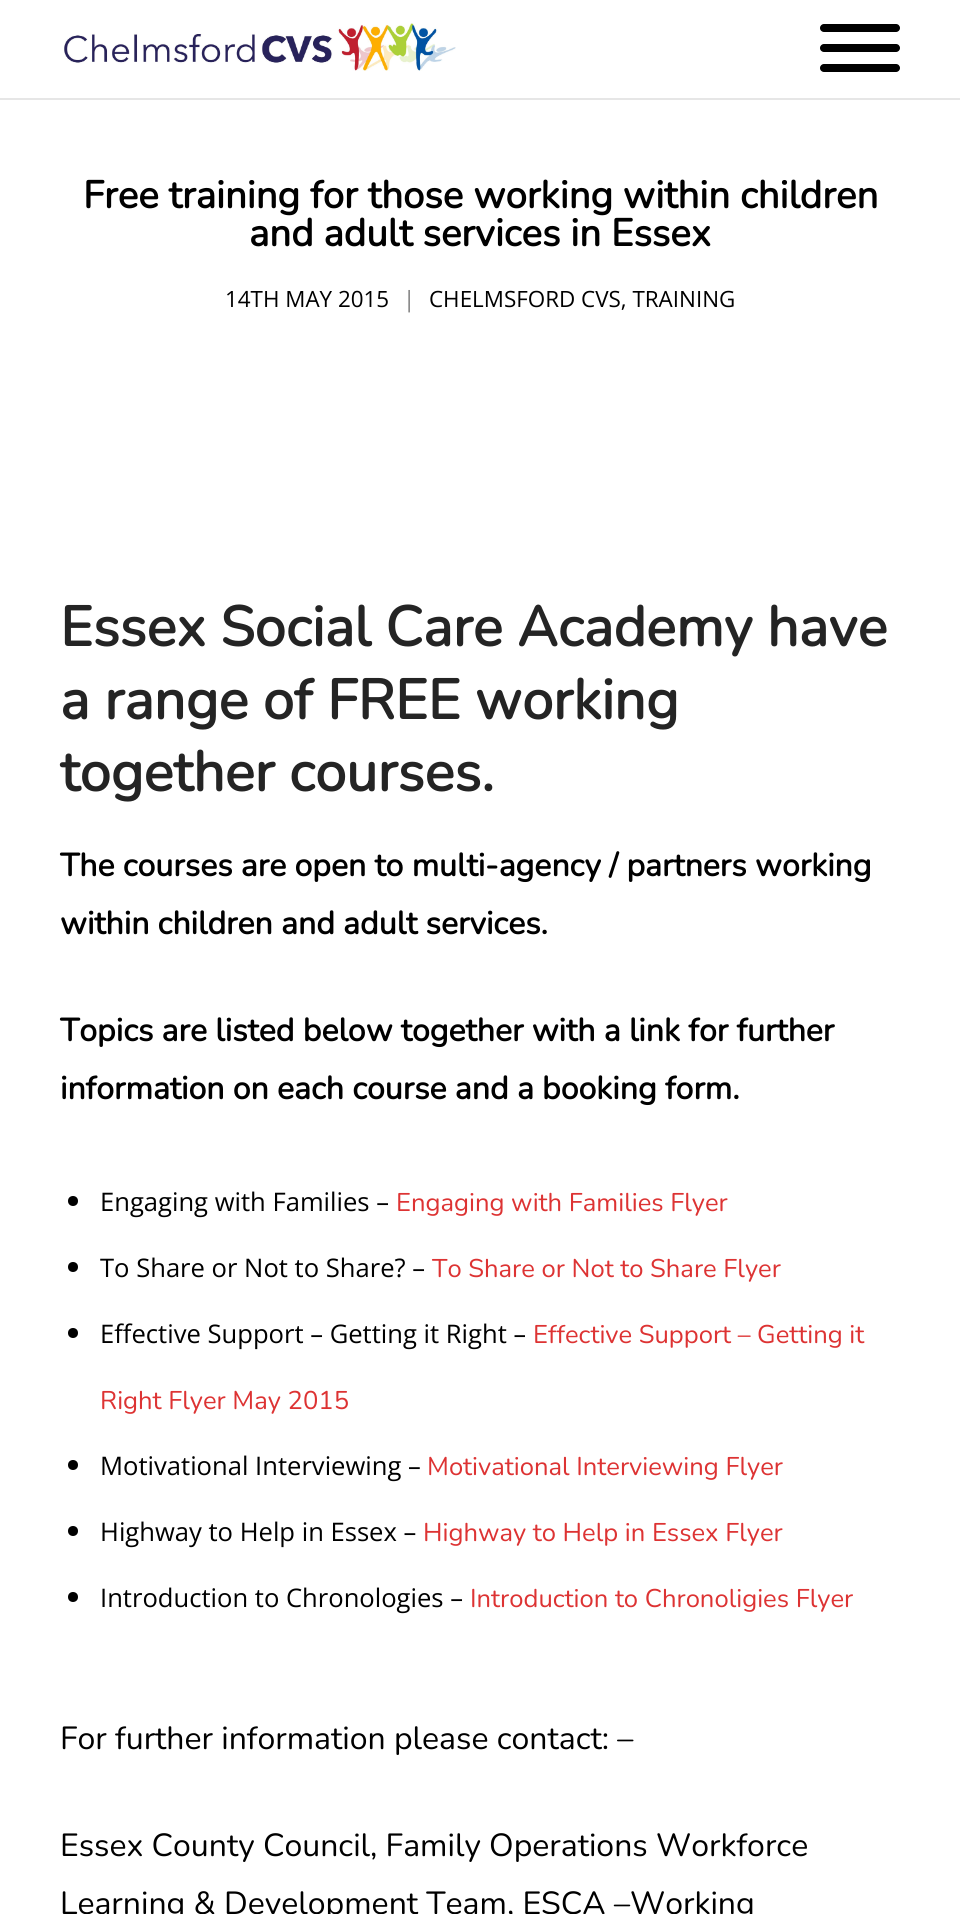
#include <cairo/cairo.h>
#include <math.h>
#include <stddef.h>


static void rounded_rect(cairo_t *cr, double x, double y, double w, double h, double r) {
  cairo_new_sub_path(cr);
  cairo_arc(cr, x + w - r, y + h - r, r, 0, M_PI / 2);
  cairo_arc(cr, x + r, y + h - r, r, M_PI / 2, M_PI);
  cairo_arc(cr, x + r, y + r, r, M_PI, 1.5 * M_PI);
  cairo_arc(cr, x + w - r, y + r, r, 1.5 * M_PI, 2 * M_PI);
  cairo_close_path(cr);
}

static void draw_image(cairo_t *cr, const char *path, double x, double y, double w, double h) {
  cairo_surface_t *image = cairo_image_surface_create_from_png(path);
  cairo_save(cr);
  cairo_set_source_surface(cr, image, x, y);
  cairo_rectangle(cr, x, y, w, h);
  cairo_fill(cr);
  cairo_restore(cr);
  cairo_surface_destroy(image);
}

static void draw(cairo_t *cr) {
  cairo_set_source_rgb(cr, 1, 1, 1);
  cairo_paint(cr);
  cairo_set_source_rgb(cr, 230 / 255.0, 230 / 255.0, 230 / 255.0);
  cairo_rectangle(cr, 0, 98, 960, 2);
  cairo_fill(cr);
  draw_image(cr, "images/1.png", 64, 23, 392, 48);
  cairo_set_source_rgb(cr, 0, 0, 0);
  rounded_rect(cr, 820, 44, 80, 8, 4);
  cairo_fill(cr);
  rounded_rect(cr, 820, 24, 80, 8, 4);
  cairo_fill(cr);
  rounded_rect(cr, 820, 64, 80, 8, 4);
  cairo_fill(cr);
  cairo_arc(cr, 73, 1201, 5, 0, 2 * M_PI);
  cairo_fill(cr);
  cairo_arc(cr, 73, 1267, 5, 0, 2 * M_PI);
  cairo_fill(cr);
  cairo_arc(cr, 73, 1333, 5, 0, 2 * M_PI);
  cairo_fill(cr);
  cairo_arc(cr, 73, 1465, 5, 0, 2 * M_PI);
  cairo_fill(cr);
  cairo_arc(cr, 73, 1531, 5, 0, 2 * M_PI);
  cairo_fill(cr);
  cairo_arc(cr, 73, 1597, 5, 0, 2 * M_PI);
  cairo_fill(cr);
  cairo_select_font_face(cr, "Nunito", CAIRO_FONT_SLANT_NORMAL, CAIRO_FONT_WEIGHT_BOLD);
  cairo_set_font_size(cr, 38.4);
  cairo_move_to(cr, 83, 208);
  cairo_show_text(cr, "Free training for those working within children");
  cairo_move_to(cr, 249, 246);
  cairo_show_text(cr, "and adult services in Essex");
  cairo_select_font_face(cr, "Open Sans", CAIRO_FONT_SLANT_NORMAL, CAIRO_FONT_WEIGHT_NORMAL);
  cairo_set_font_size(cr, 22.4);
  cairo_move_to(cr, 225, 307);
  cairo_show_text(cr, "14TH MAY 2015");
  cairo_set_source_rgb(cr, 128 / 255.0, 128 / 255.0, 128 / 255.0);
  cairo_move_to(cr, 403, 307);
  cairo_show_text(cr, "|");
  cairo_set_source_rgb(cr, 0, 0, 0);
  cairo_move_to(cr, 429, 307);
  cairo_show_text(cr, "CHELMSFORD CVS, TRAINING");
  cairo_select_font_face(cr, "Nunito", CAIRO_FONT_SLANT_NORMAL, CAIRO_FONT_WEIGHT_BOLD);
  cairo_set_font_size(cr, 56);
  cairo_set_source_rgb(cr, 36 / 255.0, 36 / 255.0, 36 / 255.0);
  cairo_move_to(cr, 60, 646);
  cairo_show_text(cr, "Essex Social Care Academy have");
  cairo_move_to(cr, 60, 719);
  cairo_show_text(cr, "a range of FREE working");
  cairo_move_to(cr, 60, 791);
  cairo_show_text(cr, "together courses.");
  cairo_set_font_size(cr, 32);
  cairo_set_source_rgb(cr, 0, 0, 0);
  cairo_move_to(cr, 60, 876);
  cairo_show_text(cr, "The courses are open to multi-agency / partners working");
  cairo_move_to(cr, 60, 934);
  cairo_show_text(cr, "within children and adult services.");
  cairo_move_to(cr, 60, 1041);
  cairo_show_text(cr, "Topics are listed below together with a link for further");
  cairo_move_to(cr, 60, 1099);
  cairo_show_text(cr, "information on each course and a booking form.");
  cairo_select_font_face(cr, "Open Sans", CAIRO_FONT_SLANT_NORMAL, CAIRO_FONT_WEIGHT_NORMAL);
  cairo_set_font_size(cr, 25.6);
  cairo_move_to(cr, 100, 1211);
  cairo_show_text(cr, "Engaging with Families –");
  cairo_select_font_face(cr, "Nunito ExtraLight", CAIRO_FONT_SLANT_NORMAL, CAIRO_FONT_WEIGHT_NORMAL);
  cairo_set_source_rgb(cr, 221 / 255.0, 51 / 255.0, 51 / 255.0);
  cairo_move_to(cr, 396, 1211);
  cairo_show_text(cr, "Engaging with Families Flyer");
  cairo_select_font_face(cr, "Open Sans", CAIRO_FONT_SLANT_NORMAL, CAIRO_FONT_WEIGHT_NORMAL);
  cairo_set_source_rgb(cr, 0, 0, 0);
  cairo_move_to(cr, 100, 1277);
  cairo_show_text(cr, "To Share or Not to Share? –");
  cairo_select_font_face(cr, "Nunito ExtraLight", CAIRO_FONT_SLANT_NORMAL, CAIRO_FONT_WEIGHT_NORMAL);
  cairo_set_source_rgb(cr, 221 / 255.0, 51 / 255.0, 51 / 255.0);
  cairo_move_to(cr, 432, 1277);
  cairo_show_text(cr, "To Share or Not to Share Flyer");
  cairo_select_font_face(cr, "Open Sans", CAIRO_FONT_SLANT_NORMAL, CAIRO_FONT_WEIGHT_NORMAL);
  cairo_set_source_rgb(cr, 0, 0, 0);
  cairo_move_to(cr, 100, 1343);
  cairo_show_text(cr, "Effective Support – Getting it Right –");
  cairo_select_font_face(cr, "Nunito ExtraLight", CAIRO_FONT_SLANT_NORMAL, CAIRO_FONT_WEIGHT_NORMAL);
  cairo_set_source_rgb(cr, 221 / 255.0, 51 / 255.0, 51 / 255.0);
  cairo_move_to(cr, 533, 1343);
  cairo_show_text(cr, "Effective Support – Getting it");
  cairo_move_to(cr, 100, 1409);
  cairo_show_text(cr, "Right Flyer May 2015");
  cairo_select_font_face(cr, "Open Sans", CAIRO_FONT_SLANT_NORMAL, CAIRO_FONT_WEIGHT_NORMAL);
  cairo_set_source_rgb(cr, 0, 0, 0);
  cairo_move_to(cr, 100, 1475);
  cairo_show_text(cr, "Motivational Interviewing –");
  cairo_select_font_face(cr, "Nunito ExtraLight", CAIRO_FONT_SLANT_NORMAL, CAIRO_FONT_WEIGHT_NORMAL);
  cairo_set_source_rgb(cr, 221 / 255.0, 51 / 255.0, 51 / 255.0);
  cairo_move_to(cr, 427, 1475);
  cairo_show_text(cr, "Motivational Interviewing Flyer");
  cairo_select_font_face(cr, "Open Sans", CAIRO_FONT_SLANT_NORMAL, CAIRO_FONT_WEIGHT_NORMAL);
  cairo_set_source_rgb(cr, 0, 0, 0);
  cairo_move_to(cr, 100, 1541);
  cairo_show_text(cr, "Highway to Help in Essex –");
  cairo_select_font_face(cr, "Nunito ExtraLight", CAIRO_FONT_SLANT_NORMAL, CAIRO_FONT_WEIGHT_NORMAL);
  cairo_set_source_rgb(cr, 221 / 255.0, 51 / 255.0, 51 / 255.0);
  cairo_move_to(cr, 423, 1541);
  cairo_show_text(cr, "Highway to Help in Essex Flyer");
  cairo_select_font_face(cr, "Open Sans", CAIRO_FONT_SLANT_NORMAL, CAIRO_FONT_WEIGHT_NORMAL);
  cairo_set_source_rgb(cr, 0, 0, 0);
  cairo_move_to(cr, 100, 1607);
  cairo_show_text(cr, "Introduction to Chronologies –");
  cairo_select_font_face(cr, "Nunito ExtraLight", CAIRO_FONT_SLANT_NORMAL, CAIRO_FONT_WEIGHT_NORMAL);
  cairo_set_source_rgb(cr, 221 / 255.0, 51 / 255.0, 51 / 255.0);
  cairo_move_to(cr, 470, 1607);
  cairo_show_text(cr, "Introduction to Chronoligies Flyer");
  cairo_set_font_size(cr, 32);
  cairo_set_source_rgb(cr, 0, 0, 0);
  cairo_move_to(cr, 60, 1749);
  cairo_show_text(cr, "For further information please contact: –");
  cairo_move_to(cr, 60, 1856);
  cairo_show_text(cr, "Essex County Council, Family Operations Workforce");
  cairo_move_to(cr, 60, 1914);
  cairo_show_text(cr, "Learning & Development Team, ESCA –Working");
}

int main(void) {
  cairo_surface_t *surface = cairo_image_surface_create(CAIRO_FORMAT_RGB24, 960, 1914);
  cairo_t *cr = cairo_create(surface);
  cairo_font_options_t *options = cairo_font_options_create();
  cairo_font_options_set_hint_metrics(options, CAIRO_HINT_METRICS_OFF);
  cairo_font_options_set_hint_style(options, CAIRO_HINT_STYLE_NONE);
  cairo_set_font_options(cr, options);
  cairo_set_miter_limit(cr, 4);
  draw(cr);
  cairo_surface_write_to_png(surface, "out.png");
  cairo_font_options_destroy(options);
  cairo_destroy(cr);
  cairo_surface_destroy(surface);
  return 0;
}
